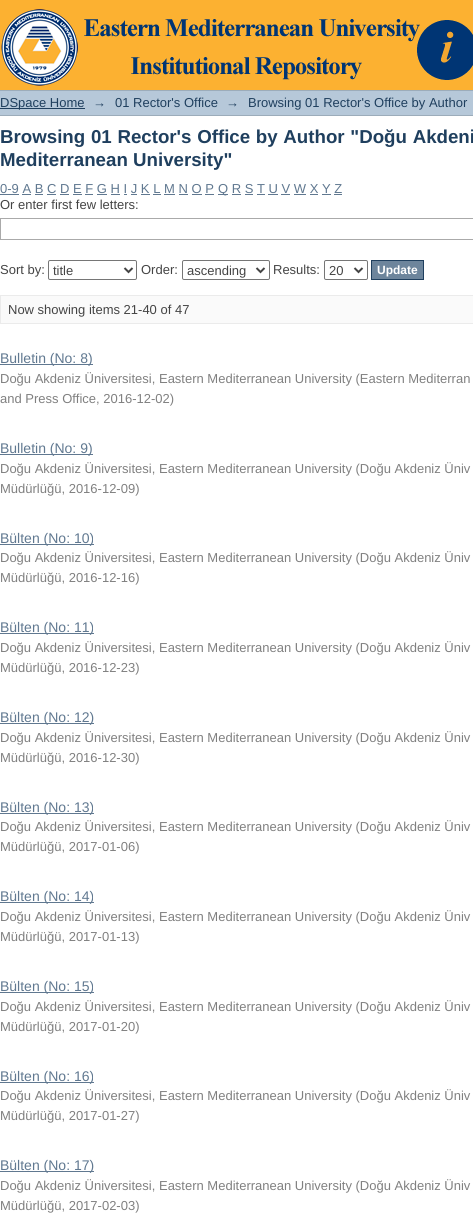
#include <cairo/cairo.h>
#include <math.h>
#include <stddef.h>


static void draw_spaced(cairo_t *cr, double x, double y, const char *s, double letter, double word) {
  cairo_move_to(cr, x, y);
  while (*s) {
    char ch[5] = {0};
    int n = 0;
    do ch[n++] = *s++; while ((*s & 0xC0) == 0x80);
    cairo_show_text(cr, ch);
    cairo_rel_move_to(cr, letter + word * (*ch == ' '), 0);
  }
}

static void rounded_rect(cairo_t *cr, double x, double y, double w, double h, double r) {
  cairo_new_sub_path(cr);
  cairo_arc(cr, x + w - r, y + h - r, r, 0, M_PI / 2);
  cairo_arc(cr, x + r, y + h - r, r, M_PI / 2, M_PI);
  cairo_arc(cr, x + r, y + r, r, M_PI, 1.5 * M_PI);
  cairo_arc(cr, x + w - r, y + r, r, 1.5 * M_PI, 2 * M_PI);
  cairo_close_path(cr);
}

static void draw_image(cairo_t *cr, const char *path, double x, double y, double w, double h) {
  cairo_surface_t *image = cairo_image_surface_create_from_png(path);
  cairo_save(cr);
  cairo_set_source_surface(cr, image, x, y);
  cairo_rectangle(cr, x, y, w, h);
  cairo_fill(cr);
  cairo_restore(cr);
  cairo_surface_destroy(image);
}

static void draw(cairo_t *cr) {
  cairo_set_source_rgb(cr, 1, 1, 1);
  cairo_paint(cr);
  cairo_set_source_rgb(cr, 252 / 255.0, 177 / 255.0, 49 / 255.0);
  cairo_rectangle(cr, 0, 0, 473, 90);
  cairo_fill(cr);
  draw_image(cr, "images/1.png", 1, 9, 472, 77);
  cairo_set_source_rgb(cr, 182 / 255.0, 200 / 255.0, 217 / 255.0);
  cairo_rectangle(cr, 0, 91, 473, 24);
  cairo_fill(cr);
  cairo_set_source_rgb(cr, 156 / 255.0, 172 / 255.0, 186 / 255.0);
  cairo_rectangle(cr, 0, 90, 473, 1);
  cairo_fill(cr);
  cairo_rectangle(cr, 0, 115, 473, 1);
  cairo_fill(cr);
  cairo_set_source_rgb(cr, 31 / 255.0, 63 / 255.0, 94 / 255.0);
  cairo_rectangle(cr, 0, 108, 85, 1);
  cairo_fill(cr);
  cairo_set_source_rgb(cr, 96 / 255.0, 120 / 255.0, 144 / 255.0);
  cairo_rectangle(cr, 0, 194, 19, 1);
  cairo_fill(cr);
  cairo_rectangle(cr, 218, 194, 10, 1);
  cairo_fill(cr);
  cairo_rectangle(cr, 22, 194, 9, 1);
  cairo_fill(cr);
  cairo_rectangle(cr, 35, 194, 8, 1);
  cairo_fill(cr);
  cairo_rectangle(cr, 47, 194, 9, 1);
  cairo_fill(cr);
  cairo_rectangle(cr, 60, 194, 9, 1);
  cairo_fill(cr);
  cairo_rectangle(cr, 73, 194, 9, 1);
  cairo_fill(cr);
  cairo_rectangle(cr, 85, 194, 8, 1);
  cairo_fill(cr);
  cairo_rectangle(cr, 97, 194, 10, 1);
  cairo_fill(cr);
  cairo_rectangle(cr, 111, 194, 9, 1);
  cairo_fill(cr);
  cairo_rectangle(cr, 124, 194, 3, 1);
  cairo_fill(cr);
  cairo_rectangle(cr, 131, 194, 6, 1);
  cairo_fill(cr);
  cairo_rectangle(cr, 141, 194, 9, 1);
  cairo_fill(cr);
  cairo_rectangle(cr, 153, 194, 8, 1);
  cairo_fill(cr);
  cairo_rectangle(cr, 164, 194, 11, 1);
  cairo_fill(cr);
  cairo_rectangle(cr, 179, 194, 9, 1);
  cairo_fill(cr);
  cairo_rectangle(cr, 192, 194, 10, 1);
  cairo_fill(cr);
  cairo_rectangle(cr, 205, 194, 9, 1);
  cairo_fill(cr);
  cairo_rectangle(cr, 232, 194, 9, 1);
  cairo_fill(cr);
  cairo_rectangle(cr, 245, 194, 8, 1);
  cairo_fill(cr);
  cairo_rectangle(cr, 257, 194, 8, 1);
  cairo_fill(cr);
  cairo_rectangle(cr, 268, 194, 10, 1);
  cairo_fill(cr);
  cairo_rectangle(cr, 281, 194, 9, 1);
  cairo_fill(cr);
  cairo_rectangle(cr, 294, 194, 12, 1);
  cairo_fill(cr);
  cairo_rectangle(cr, 310, 194, 8, 1);
  cairo_fill(cr);
  cairo_rectangle(cr, 322, 194, 9, 1);
  cairo_fill(cr);
  cairo_rectangle(cr, 334, 194, 8, 1);
  cairo_fill(cr);
  cairo_rectangle(cr, 0.5, 218.5, 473, 21);
  cairo_set_source_rgb(cr, 170 / 255.0, 170 / 255.0, 170 / 255.0);
  cairo_set_line_width(cr, 1);
  cairo_stroke(cr);
  rounded_rect(cr, 48.5, 260.5, 88, 19, 1.5);
  cairo_set_source_rgb(cr, 118 / 255.0, 118 / 255.0, 118 / 255.0);
  cairo_stroke(cr);
  cairo_new_path(cr);
  cairo_move_to(cr, 124.5, 268);
  cairo_line_to(cr, 128.5, 272);
  cairo_line_to(cr, 132.5, 268);
  cairo_set_source_rgb(cr, 68 / 255.0, 68 / 255.0, 68 / 255.0);
  cairo_set_line_width(cr, 2);
  cairo_stroke(cr);
  rounded_rect(cr, 182.5, 260.5, 87, 19, 1.5);
  cairo_set_source_rgb(cr, 118 / 255.0, 118 / 255.0, 118 / 255.0);
  cairo_set_line_width(cr, 1);
  cairo_stroke(cr);
  cairo_new_path(cr);
  cairo_move_to(cr, 256.5, 268);
  cairo_line_to(cr, 260.5, 272);
  cairo_line_to(cr, 264.5, 268);
  cairo_set_source_rgb(cr, 68 / 255.0, 68 / 255.0, 68 / 255.0);
  cairo_set_line_width(cr, 2);
  cairo_stroke(cr);
  rounded_rect(cr, 324.5, 260.5, 43, 19, 1.5);
  cairo_set_source_rgb(cr, 118 / 255.0, 118 / 255.0, 118 / 255.0);
  cairo_set_line_width(cr, 1);
  cairo_stroke(cr);
  cairo_new_path(cr);
  cairo_move_to(cr, 354.5, 268);
  cairo_line_to(cr, 358.5, 272);
  cairo_line_to(cr, 362.5, 268);
  cairo_set_source_rgb(cr, 68 / 255.0, 68 / 255.0, 68 / 255.0);
  cairo_set_line_width(cr, 2);
  cairo_stroke(cr);
  cairo_set_source_rgb(cr, 109 / 255.0, 133 / 255.0, 156 / 255.0);
  cairo_rectangle(cr, 371.5, 260.5, 52, 19);
  cairo_fill_preserve(cr);
  cairo_set_source_rgb(cr, 31 / 255.0, 63 / 255.0, 94 / 255.0);
  cairo_set_line_width(cr, 1);
  cairo_stroke(cr);
  cairo_set_source_rgb(cr, 250 / 255.0, 250 / 255.0, 250 / 255.0);
  cairo_rectangle(cr, 0.5, 295.5, 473, 28);
  cairo_fill_preserve(cr);
  cairo_set_source_rgb(cr, 235 / 255.0, 235 / 255.0, 235 / 255.0);
  cairo_stroke(cr);
  cairo_set_source_rgb(cr, 96 / 255.0, 120 / 255.0, 144 / 255.0);
  cairo_rectangle(cr, 0, 364, 93, 1);
  cairo_fill(cr);
  cairo_rectangle(cr, 0, 454, 93, 1);
  cairo_fill(cr);
  cairo_rectangle(cr, 0, 544, 94, 1);
  cairo_fill(cr);
  cairo_rectangle(cr, 0, 633, 94, 1);
  cairo_fill(cr);
  cairo_rectangle(cr, 0, 723, 94, 1);
  cairo_fill(cr);
  cairo_rectangle(cr, 0, 813, 94, 1);
  cairo_fill(cr);
  cairo_rectangle(cr, 0, 902, 94, 1);
  cairo_fill(cr);
  cairo_rectangle(cr, 0, 992, 94, 1);
  cairo_fill(cr);
  cairo_rectangle(cr, 0, 1082, 94, 1);
  cairo_fill(cr);
  cairo_rectangle(cr, 0, 1171, 94, 1);
  cairo_fill(cr);
  cairo_select_font_face(cr, "Liberation Sans", CAIRO_FONT_SLANT_NORMAL, CAIRO_FONT_WEIGHT_NORMAL);
  cairo_set_font_size(cr, 13);
  cairo_set_source_rgb(cr, 31 / 255.0, 63 / 255.0, 94 / 255.0);
  cairo_move_to(cr, 0, 107);
  cairo_show_text(cr, "DSpace Home");
  cairo_move_to(cr, 93, 107);
  cairo_show_text(cr, "→");
  cairo_move_to(cr, 115, 107);
  cairo_show_text(cr, "01 Rector's Office");
  cairo_move_to(cr, 226, 107);
  cairo_show_text(cr, "→");
  cairo_move_to(cr, 248, 107);
  cairo_show_text(cr, "Browsing 01 Rector's Office by Author");
  cairo_select_font_face(cr, "Liberation Sans", CAIRO_FONT_SLANT_NORMAL, CAIRO_FONT_WEIGHT_BOLD);
  cairo_set_font_size(cr, 18.7);
  draw_spaced(cr, 0, 143, "Browsing 01 Rector's Office by Author \"Doğu Akdeni", 0, 0.5);
  cairo_move_to(cr, 0, 166);
  cairo_show_text(cr, "Mediterranean University\"");
  cairo_select_font_face(cr, "Liberation Sans", CAIRO_FONT_SLANT_NORMAL, CAIRO_FONT_WEIGHT_NORMAL);
  cairo_set_font_size(cr, 13);
  cairo_set_source_rgb(cr, 96 / 255.0, 120 / 255.0, 144 / 255.0);
  cairo_move_to(cr, 0, 193);
  cairo_show_text(cr, "0-9 A B C D E F G H I J K L M N O P");
  cairo_move_to(cr, 218, 193);
  cairo_show_text(cr, "Q R S T U V W X Y Z");
  cairo_set_source_rgb(cr, 68 / 255.0, 68 / 255.0, 68 / 255.0);
  cairo_move_to(cr, 0, 209);
  cairo_show_text(cr, "Or enter first few letters:");
  cairo_move_to(cr, 0, 274);
  cairo_show_text(cr, "Sort by:");
  cairo_move_to(cr, 53, 275);
  cairo_show_text(cr, "title");
  cairo_move_to(cr, 141, 274);
  cairo_show_text(cr, "Order:");
  cairo_move_to(cr, 187, 275);
  cairo_show_text(cr, "ascending");
  cairo_move_to(cr, 273, 274);
  cairo_show_text(cr, "Results:");
  cairo_move_to(cr, 329, 275);
  cairo_show_text(cr, "20");
  cairo_select_font_face(cr, "Liberation Sans", CAIRO_FONT_SLANT_NORMAL, CAIRO_FONT_WEIGHT_BOLD);
  cairo_set_font_size(cr, 12);
  cairo_set_source_rgb(cr, 1, 1, 1);
  cairo_move_to(cr, 377, 274);
  cairo_show_text(cr, "Update");
  cairo_select_font_face(cr, "Liberation Sans", CAIRO_FONT_SLANT_NORMAL, CAIRO_FONT_WEIGHT_NORMAL);
  cairo_set_font_size(cr, 13);
  cairo_set_source_rgb(cr, 68 / 255.0, 68 / 255.0, 68 / 255.0);
  cairo_move_to(cr, 8, 314);
  cairo_show_text(cr, "Now showing items 21-40 of 47");
  cairo_set_font_size(cr, 14);
  cairo_set_source_rgb(cr, 96 / 255.0, 120 / 255.0, 144 / 255.0);
  cairo_move_to(cr, 0, 363);
  cairo_show_text(cr, "Bulletin (No: 8)");
  cairo_set_font_size(cr, 13);
  cairo_set_source_rgb(cr, 128 / 255.0, 128 / 255.0, 128 / 255.0);
  cairo_move_to(cr, 0, 383);
  cairo_show_text(cr, "Doğu Akdeniz Üniversitesi, Eastern Mediterranean University (Eastern Mediterran");
  cairo_move_to(cr, 0, 403);
  cairo_show_text(cr, "and Press Office, 2016-12-02)");
  cairo_set_font_size(cr, 14);
  cairo_set_source_rgb(cr, 96 / 255.0, 120 / 255.0, 144 / 255.0);
  cairo_move_to(cr, 0, 453);
  cairo_show_text(cr, "Bulletin (No: 9)");
  cairo_set_font_size(cr, 13);
  cairo_set_source_rgb(cr, 128 / 255.0, 128 / 255.0, 128 / 255.0);
  cairo_move_to(cr, 0, 473);
  cairo_show_text(cr, "Doğu Akdeniz Üniversitesi, Eastern Mediterranean University (Doğu Akdeniz Üniv");
  cairo_move_to(cr, 0, 493);
  cairo_show_text(cr, "Müdürlüğü, 2016-12-09)");
  cairo_set_font_size(cr, 14);
  cairo_set_source_rgb(cr, 96 / 255.0, 120 / 255.0, 144 / 255.0);
  cairo_move_to(cr, 0, 543);
  cairo_show_text(cr, "Bülten (No: 10)");
  cairo_set_font_size(cr, 13);
  cairo_set_source_rgb(cr, 128 / 255.0, 128 / 255.0, 128 / 255.0);
  cairo_move_to(cr, 0, 562);
  cairo_show_text(cr, "Doğu Akdeniz Üniversitesi, Eastern Mediterranean University (Doğu Akdeniz Üniv");
  cairo_move_to(cr, 0, 582);
  cairo_show_text(cr, "Müdürlüğü, 2016-12-16)");
  cairo_set_font_size(cr, 14);
  cairo_set_source_rgb(cr, 96 / 255.0, 120 / 255.0, 144 / 255.0);
  cairo_move_to(cr, 0, 632);
  cairo_show_text(cr, "Bülten (No: 11)");
  cairo_set_font_size(cr, 13);
  cairo_set_source_rgb(cr, 128 / 255.0, 128 / 255.0, 128 / 255.0);
  cairo_move_to(cr, 0, 652);
  cairo_show_text(cr, "Doğu Akdeniz Üniversitesi, Eastern Mediterranean University (Doğu Akdeniz Üniv");
  cairo_move_to(cr, 0, 672);
  cairo_show_text(cr, "Müdürlüğü, 2016-12-23)");
  cairo_set_font_size(cr, 14);
  cairo_set_source_rgb(cr, 96 / 255.0, 120 / 255.0, 144 / 255.0);
  cairo_move_to(cr, 0, 722);
  cairo_show_text(cr, "Bülten (No: 12)");
  cairo_set_font_size(cr, 13);
  cairo_set_source_rgb(cr, 128 / 255.0, 128 / 255.0, 128 / 255.0);
  cairo_move_to(cr, 0, 742);
  cairo_show_text(cr, "Doğu Akdeniz Üniversitesi, Eastern Mediterranean University (Doğu Akdeniz Üniv");
  cairo_move_to(cr, 0, 762);
  cairo_show_text(cr, "Müdürlüğü, 2016-12-30)");
  cairo_set_font_size(cr, 14);
  cairo_set_source_rgb(cr, 96 / 255.0, 120 / 255.0, 144 / 255.0);
  cairo_move_to(cr, 0, 812);
  cairo_show_text(cr, "Bülten (No: 13)");
  cairo_set_font_size(cr, 13);
  cairo_set_source_rgb(cr, 128 / 255.0, 128 / 255.0, 128 / 255.0);
  cairo_move_to(cr, 0, 831);
  cairo_show_text(cr, "Doğu Akdeniz Üniversitesi, Eastern Mediterranean University (Doğu Akdeniz Üniv");
  cairo_move_to(cr, 0, 851);
  cairo_show_text(cr, "Müdürlüğü, 2017-01-06)");
  cairo_set_font_size(cr, 14);
  cairo_set_source_rgb(cr, 96 / 255.0, 120 / 255.0, 144 / 255.0);
  cairo_move_to(cr, 0, 901);
  cairo_show_text(cr, "Bülten (No: 14)");
  cairo_set_font_size(cr, 13);
  cairo_set_source_rgb(cr, 128 / 255.0, 128 / 255.0, 128 / 255.0);
  cairo_move_to(cr, 0, 921);
  cairo_show_text(cr, "Doğu Akdeniz Üniversitesi, Eastern Mediterranean University (Doğu Akdeniz Üniv");
  cairo_move_to(cr, 0, 941);
  cairo_show_text(cr, "Müdürlüğü, 2017-01-13)");
  cairo_set_font_size(cr, 14);
  cairo_set_source_rgb(cr, 96 / 255.0, 120 / 255.0, 144 / 255.0);
  cairo_move_to(cr, 0, 991);
  cairo_show_text(cr, "Bülten (No: 15)");
  cairo_set_font_size(cr, 13);
  cairo_set_source_rgb(cr, 128 / 255.0, 128 / 255.0, 128 / 255.0);
  cairo_move_to(cr, 0, 1011);
  cairo_show_text(cr, "Doğu Akdeniz Üniversitesi, Eastern Mediterranean University (Doğu Akdeniz Üniv");
  cairo_move_to(cr, 0, 1031);
  cairo_show_text(cr, "Müdürlüğü, 2017-01-20)");
  cairo_set_font_size(cr, 14);
  cairo_set_source_rgb(cr, 96 / 255.0, 120 / 255.0, 144 / 255.0);
  cairo_move_to(cr, 0, 1081);
  cairo_show_text(cr, "Bülten (No: 16)");
  cairo_set_font_size(cr, 13);
  cairo_set_source_rgb(cr, 128 / 255.0, 128 / 255.0, 128 / 255.0);
  cairo_move_to(cr, 0, 1100);
  cairo_show_text(cr, "Doğu Akdeniz Üniversitesi, Eastern Mediterranean University (Doğu Akdeniz Üniv");
  cairo_move_to(cr, 0, 1120);
  cairo_show_text(cr, "Müdürlüğü, 2017-01-27)");
  cairo_set_font_size(cr, 14);
  cairo_set_source_rgb(cr, 96 / 255.0, 120 / 255.0, 144 / 255.0);
  cairo_move_to(cr, 0, 1170);
  cairo_show_text(cr, "Bülten (No: 17)");
  cairo_set_font_size(cr, 13);
  cairo_set_source_rgb(cr, 128 / 255.0, 128 / 255.0, 128 / 255.0);
  cairo_move_to(cr, 0, 1190);
  cairo_show_text(cr, "Doğu Akdeniz Üniversitesi, Eastern Mediterranean University (Doğu Akdeniz Üniv");
  cairo_move_to(cr, 0, 1210);
  cairo_show_text(cr, "Müdürlüğü, 2017-02-03)");
}

int main(void) {
  cairo_surface_t *surface = cairo_image_surface_create(CAIRO_FORMAT_RGB24, 473, 1224);
  cairo_t *cr = cairo_create(surface);
  cairo_font_options_t *options = cairo_font_options_create();
  cairo_font_options_set_hint_metrics(options, CAIRO_HINT_METRICS_OFF);
  cairo_font_options_set_hint_style(options, CAIRO_HINT_STYLE_NONE);
  cairo_set_font_options(cr, options);
  cairo_set_miter_limit(cr, 4);
  draw(cr);
  cairo_surface_write_to_png(surface, "out.png");
  cairo_font_options_destroy(options);
  cairo_destroy(cr);
  cairo_surface_destroy(surface);
  return 0;
}
